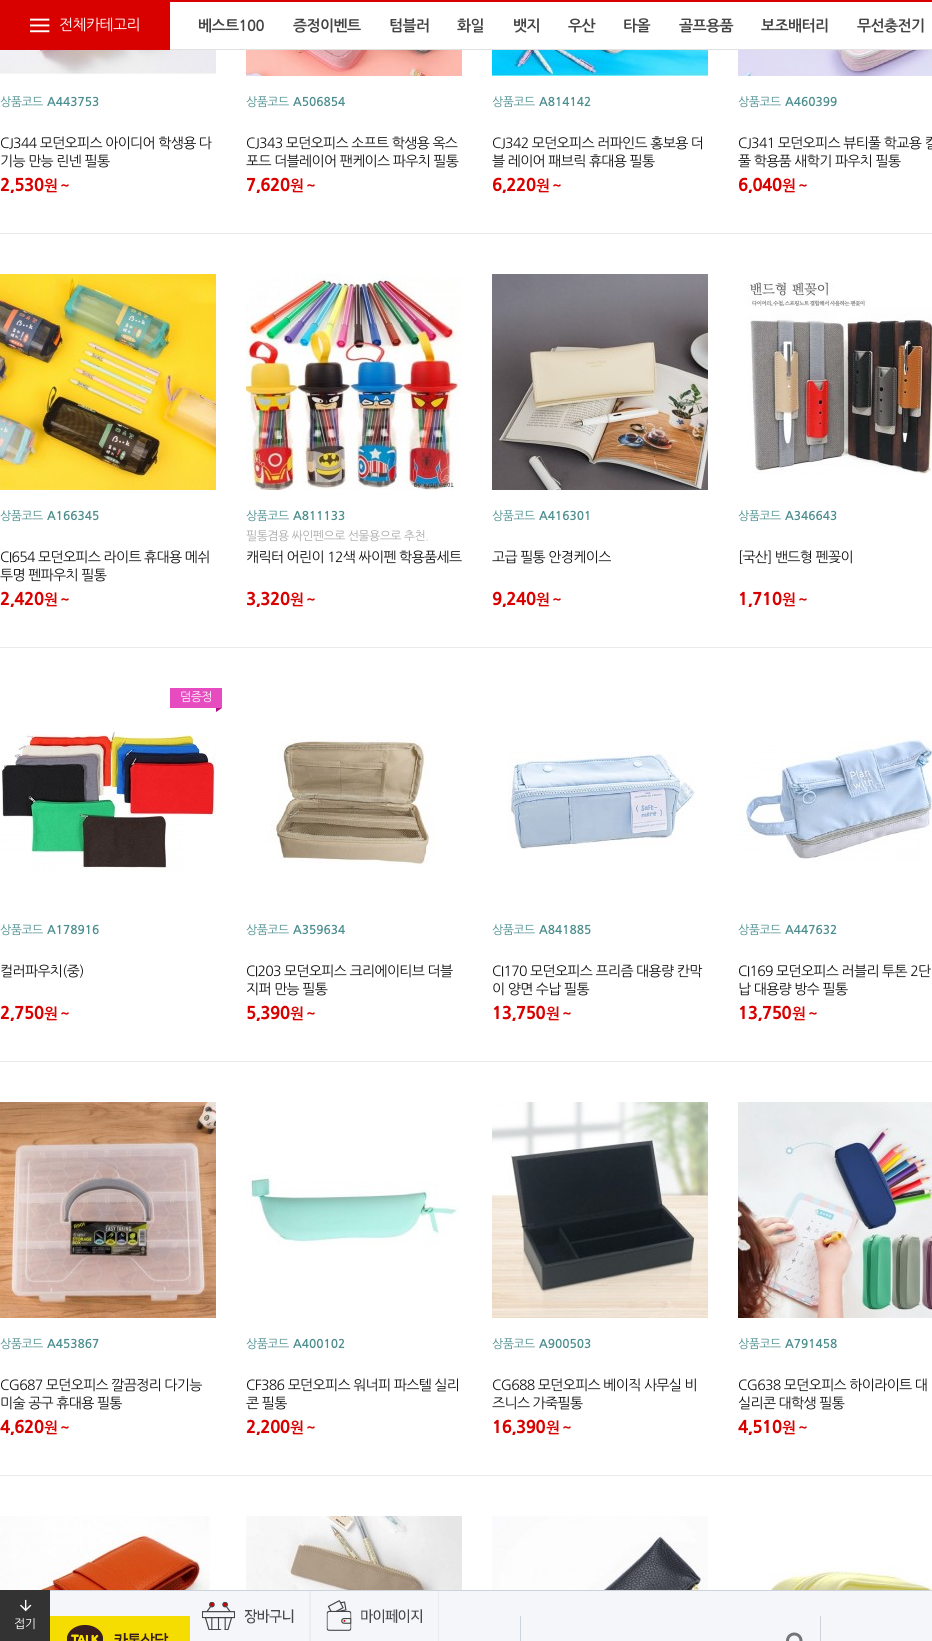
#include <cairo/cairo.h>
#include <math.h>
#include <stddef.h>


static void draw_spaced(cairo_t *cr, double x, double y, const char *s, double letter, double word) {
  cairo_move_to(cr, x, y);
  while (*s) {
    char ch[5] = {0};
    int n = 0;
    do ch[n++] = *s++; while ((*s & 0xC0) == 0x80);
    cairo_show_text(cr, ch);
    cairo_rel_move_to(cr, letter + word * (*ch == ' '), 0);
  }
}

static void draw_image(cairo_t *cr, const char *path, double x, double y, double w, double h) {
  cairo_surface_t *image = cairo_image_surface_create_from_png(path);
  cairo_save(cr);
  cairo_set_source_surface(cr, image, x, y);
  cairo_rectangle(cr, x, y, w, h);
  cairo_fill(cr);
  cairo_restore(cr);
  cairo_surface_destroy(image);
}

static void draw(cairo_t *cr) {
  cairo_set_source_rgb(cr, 1, 1, 1);
  cairo_paint(cr);
  cairo_set_source_rgb(cr, 217 / 255.0, 0, 0);
  cairo_rectangle(cr, 0, 0, 932, 2);
  cairo_fill(cr);
  cairo_set_source_rgb(cr, 225 / 255.0, 225 / 255.0, 225 / 255.0);
  cairo_rectangle(cr, 170, 49, 762, 1);
  cairo_fill(cr);
  cairo_set_source_rgb(cr, 217 / 255.0, 0, 0);
  cairo_rectangle(cr, 0, 2, 170, 48);
  cairo_fill(cr);
  draw_image(cr, "images/1.png", 30, 18, 20, 15);
  draw_image(cr, "images/2.png", 0, 50, 216, 24);
  draw_image(cr, "images/3.png", 246, 50, 216, 26);
  draw_image(cr, "images/4.png", 492, 50, 216, 26);
  draw_image(cr, "images/5.png", 738, 50, 194, 26);
  cairo_set_source_rgb(cr, 234 / 255.0, 234 / 255.0, 234 / 255.0);
  cairo_rectangle(cr, 0, 233, 932, 1);
  cairo_fill(cr);
  draw_image(cr, "images/6.png", 0, 274, 216, 216);
  draw_image(cr, "images/7.png", 246, 274, 216, 216);
  draw_image(cr, "images/8.png", 492, 274, 216, 216);
  draw_image(cr, "images/9.png", 746, 282, 186, 193);
  cairo_rectangle(cr, 0, 647, 932, 1);
  cairo_fill(cr);
  cairo_set_source_rgb(cr, 230 / 255.0, 76 / 255.0, 192 / 255.0);
  cairo_rectangle(cr, 170, 688, 52, 20);
  cairo_fill(cr);
  cairo_set_source_rgb(cr, 182 / 255.0, 5 / 255.0, 138 / 255.0);
  cairo_new_path(cr);
  cairo_move_to(cr, 216, 708);
  cairo_line_to(cr, 222, 708);
  cairo_line_to(cr, 216, 712);
  cairo_close_path(cr);
  cairo_fill(cr);
  draw_image(cr, "images/10.png", 1, 731, 215, 141);
  draw_image(cr, "images/11.png", 266, 736, 169, 129);
  draw_image(cr, "images/12.png", 508, 752, 188, 97);
  draw_image(cr, "images/13.png", 738, 736, 194, 125);
  cairo_set_source_rgb(cr, 234 / 255.0, 234 / 255.0, 234 / 255.0);
  cairo_rectangle(cr, 0, 1061, 932, 1);
  cairo_fill(cr);
  draw_image(cr, "images/14.png", 0, 1102, 216, 216);
  draw_image(cr, "images/15.png", 246, 1174, 213, 72);
  draw_image(cr, "images/16.png", 492, 1102, 216, 216);
  draw_image(cr, "images/17.png", 738, 1102, 194, 216);
  cairo_rectangle(cr, 0, 1475, 932, 1);
  cairo_fill(cr);
  draw_image(cr, "images/18.png", 0, 1516, 216, 74);
  draw_image(cr, "images/19.png", 246, 1516, 216, 74);
  draw_image(cr, "images/20.png", 492, 1516, 216, 74);
  draw_image(cr, "images/21.png", 755, 1564, 177, 26);
  cairo_set_source_rgb(cr, 244 / 255.0, 246 / 255.0, 249 / 255.0);
  cairo_rectangle(cr, 50, 1591, 882, 50);
  cairo_fill(cr);
  cairo_set_source_rgb(cr, 204 / 255.0, 211 / 255.0, 220 / 255.0);
  cairo_rectangle(cr, 50, 1590, 882, 1);
  cairo_fill(cr);
  cairo_set_source_rgb(cr, 51 / 255.0, 51 / 255.0, 51 / 255.0);
  cairo_rectangle(cr, 0, 1590, 50, 51);
  cairo_fill(cr);
  draw_image(cr, "images/22.png", 20, 1599, 12, 13);
  draw_image(cr, "images/23.png", 50, 1616, 140, 25);
  draw_image(cr, "images/24.png", 202, 1591, 108, 50);
  cairo_set_source_rgb(cr, 233 / 255.0, 237 / 255.0, 243 / 255.0);
  cairo_rectangle(cr, 310, 1591, 1, 50);
  cairo_fill(cr);
  draw_image(cr, "images/25.png", 326, 1591, 113, 50);
  cairo_set_source_rgb(cr, 204 / 255.0, 211 / 255.0, 220 / 255.0);
  cairo_rectangle(cr, 520, 1616, 1, 25);
  cairo_fill(cr);
  draw_image(cr, "images/26.png", 786, 1632, 17, 9);
  cairo_rectangle(cr, 820, 1616, 1, 25);
  cairo_fill(cr);
  cairo_select_font_face(cr, "NanumGothic", CAIRO_FONT_SLANT_NORMAL, CAIRO_FONT_WEIGHT_NORMAL);
  cairo_set_font_size(cr, 15);
  cairo_set_source_rgb(cr, 1, 1, 1);
  draw_spaced(cr, 59, 30, "전체카테고리", -0.6, 0);
  cairo_select_font_face(cr, "NanumGothic", CAIRO_FONT_SLANT_NORMAL, CAIRO_FONT_WEIGHT_BOLD);
  cairo_set_source_rgb(cr, 68 / 255.0, 68 / 255.0, 68 / 255.0);
  draw_spaced(cr, 198, 31, "베스트100", -0.6, 0);
  draw_spaced(cr, 293, 31, "증정이벤트", -0.6, 0);
  draw_spaced(cr, 389, 31, "텀블러", -0.6, 0);
  draw_spaced(cr, 457, 31, "화일", -0.6, 0);
  draw_spaced(cr, 513, 31, "뱃지", -0.6, 0);
  draw_spaced(cr, 568, 31, "우산", -0.6, 0);
  draw_spaced(cr, 623, 31, "타올", -0.6, 0);
  draw_spaced(cr, 679, 31, "골프용품", -0.6, 0);
  draw_spaced(cr, 761, 31, "보조배터리", -0.6, 0);
  draw_spaced(cr, 857, 31, "무선충전기", -0.6, 0);
  cairo_select_font_face(cr, "NanumGothic", CAIRO_FONT_SLANT_NORMAL, CAIRO_FONT_WEIGHT_NORMAL);
  cairo_set_font_size(cr, 12);
  cairo_set_source_rgb(cr, 76 / 255.0, 141 / 255.0, 142 / 255.0);
  draw_spaced(cr, 0, 106, "상품코드", -0.6, 0);
  cairo_select_font_face(cr, "NanumGothic", CAIRO_FONT_SLANT_NORMAL, CAIRO_FONT_WEIGHT_BOLD);
  cairo_move_to(cr, 47, 106);
  cairo_show_text(cr, "A443753");
  cairo_select_font_face(cr, "NanumGothic", CAIRO_FONT_SLANT_NORMAL, CAIRO_FONT_WEIGHT_NORMAL);
  cairo_set_font_size(cr, 14);
  cairo_set_source_rgb(cr, 17 / 255.0, 17 / 255.0, 17 / 255.0);
  draw_spaced(cr, 0, 148, "CJ344 모던오피스 아이디어 학생용 다", -0.7, 0);
  draw_spaced(cr, 0, 166, "기능 만능 린넨 필통", -0.7, 0);
  cairo_save(cr);
  cairo_rectangle(cr, 0, 176, 216, 17);
  cairo_clip(cr);
  cairo_select_font_face(cr, "NanumGothic ExtraBold", CAIRO_FONT_SLANT_NORMAL, CAIRO_FONT_WEIGHT_NORMAL);
  cairo_set_font_size(cr, 17);
  cairo_set_source_rgb(cr, 217 / 255.0, 0, 0);
  draw_spaced(cr, 0, 191, "2,530", -0.6, 0);
  cairo_restore(cr);
  cairo_select_font_face(cr, "NanumGothic", CAIRO_FONT_SLANT_NORMAL, CAIRO_FONT_WEIGHT_BOLD);
  cairo_set_font_size(cr, 15);
  cairo_set_source_rgb(cr, 217 / 255.0, 0, 0);
  draw_spaced(cr, 44, 191, "원", -0.6, 0);
  draw_spaced(cr, 60, 191, "~", -0.6, 0);
  cairo_select_font_face(cr, "NanumGothic", CAIRO_FONT_SLANT_NORMAL, CAIRO_FONT_WEIGHT_NORMAL);
  cairo_set_font_size(cr, 12);
  cairo_set_source_rgb(cr, 76 / 255.0, 141 / 255.0, 142 / 255.0);
  draw_spaced(cr, 246, 106, "상품코드", -0.6, 0);
  cairo_select_font_face(cr, "NanumGothic", CAIRO_FONT_SLANT_NORMAL, CAIRO_FONT_WEIGHT_BOLD);
  cairo_move_to(cr, 293, 106);
  cairo_show_text(cr, "A506854");
  cairo_select_font_face(cr, "NanumGothic", CAIRO_FONT_SLANT_NORMAL, CAIRO_FONT_WEIGHT_NORMAL);
  cairo_set_font_size(cr, 14);
  cairo_set_source_rgb(cr, 17 / 255.0, 17 / 255.0, 17 / 255.0);
  draw_spaced(cr, 246, 148, "CJ343 모던오피스 소프트 학생용 옥스", -0.7, 0);
  draw_spaced(cr, 246, 166, "포드 더블레이어 팬케이스 파우치 필통", -0.7, 0);
  cairo_save(cr);
  cairo_rectangle(cr, 246, 176, 216, 17);
  cairo_clip(cr);
  cairo_select_font_face(cr, "NanumGothic ExtraBold", CAIRO_FONT_SLANT_NORMAL, CAIRO_FONT_WEIGHT_NORMAL);
  cairo_set_font_size(cr, 17);
  cairo_set_source_rgb(cr, 217 / 255.0, 0, 0);
  draw_spaced(cr, 246, 191, "7,620", -0.6, 0);
  cairo_restore(cr);
  cairo_select_font_face(cr, "NanumGothic", CAIRO_FONT_SLANT_NORMAL, CAIRO_FONT_WEIGHT_BOLD);
  cairo_set_font_size(cr, 15);
  cairo_set_source_rgb(cr, 217 / 255.0, 0, 0);
  draw_spaced(cr, 290, 191, "원", -0.6, 0);
  draw_spaced(cr, 306, 191, "~", -0.6, 0);
  cairo_select_font_face(cr, "NanumGothic", CAIRO_FONT_SLANT_NORMAL, CAIRO_FONT_WEIGHT_NORMAL);
  cairo_set_font_size(cr, 12);
  cairo_set_source_rgb(cr, 76 / 255.0, 141 / 255.0, 142 / 255.0);
  draw_spaced(cr, 492, 106, "상품코드", -0.6, 0);
  cairo_select_font_face(cr, "NanumGothic", CAIRO_FONT_SLANT_NORMAL, CAIRO_FONT_WEIGHT_BOLD);
  cairo_move_to(cr, 539, 106);
  cairo_show_text(cr, "A814142");
  cairo_select_font_face(cr, "NanumGothic", CAIRO_FONT_SLANT_NORMAL, CAIRO_FONT_WEIGHT_NORMAL);
  cairo_set_font_size(cr, 14);
  cairo_set_source_rgb(cr, 17 / 255.0, 17 / 255.0, 17 / 255.0);
  draw_spaced(cr, 492, 148, "CJ342 모던오피스 러파인드 홍보용 더", -0.7, 0);
  draw_spaced(cr, 492, 166, "블 레이어 패브릭 휴대용 필통", -0.7, 0);
  cairo_save(cr);
  cairo_rectangle(cr, 492, 176, 216, 17);
  cairo_clip(cr);
  cairo_select_font_face(cr, "NanumGothic ExtraBold", CAIRO_FONT_SLANT_NORMAL, CAIRO_FONT_WEIGHT_NORMAL);
  cairo_set_font_size(cr, 17);
  cairo_set_source_rgb(cr, 217 / 255.0, 0, 0);
  draw_spaced(cr, 492, 191, "6,220", -0.6, 0);
  cairo_restore(cr);
  cairo_select_font_face(cr, "NanumGothic", CAIRO_FONT_SLANT_NORMAL, CAIRO_FONT_WEIGHT_BOLD);
  cairo_set_font_size(cr, 15);
  cairo_set_source_rgb(cr, 217 / 255.0, 0, 0);
  draw_spaced(cr, 536, 191, "원", -0.6, 0);
  draw_spaced(cr, 552, 191, "~", -0.6, 0);
  cairo_select_font_face(cr, "NanumGothic", CAIRO_FONT_SLANT_NORMAL, CAIRO_FONT_WEIGHT_NORMAL);
  cairo_set_font_size(cr, 12);
  cairo_set_source_rgb(cr, 76 / 255.0, 141 / 255.0, 142 / 255.0);
  draw_spaced(cr, 738, 106, "상품코드", -0.6, 0);
  cairo_select_font_face(cr, "NanumGothic", CAIRO_FONT_SLANT_NORMAL, CAIRO_FONT_WEIGHT_BOLD);
  cairo_move_to(cr, 785, 106);
  cairo_show_text(cr, "A460399");
  cairo_select_font_face(cr, "NanumGothic", CAIRO_FONT_SLANT_NORMAL, CAIRO_FONT_WEIGHT_NORMAL);
  cairo_set_font_size(cr, 14);
  cairo_set_source_rgb(cr, 17 / 255.0, 17 / 255.0, 17 / 255.0);
  draw_spaced(cr, 738, 148, "CJ341 모던오피스 뷰티풀 학교용 컬", -0.7, 0);
  draw_spaced(cr, 738, 166, "풀 학용품 새학기 파우치 필통", -0.7, 0);
  cairo_save(cr);
  cairo_rectangle(cr, 738, 176, 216, 17);
  cairo_clip(cr);
  cairo_select_font_face(cr, "NanumGothic ExtraBold", CAIRO_FONT_SLANT_NORMAL, CAIRO_FONT_WEIGHT_NORMAL);
  cairo_set_font_size(cr, 17);
  cairo_set_source_rgb(cr, 217 / 255.0, 0, 0);
  draw_spaced(cr, 738, 191, "6,040", -0.6, 0);
  cairo_restore(cr);
  cairo_select_font_face(cr, "NanumGothic", CAIRO_FONT_SLANT_NORMAL, CAIRO_FONT_WEIGHT_BOLD);
  cairo_set_font_size(cr, 15);
  cairo_set_source_rgb(cr, 217 / 255.0, 0, 0);
  draw_spaced(cr, 782, 191, "원", -0.6, 0);
  draw_spaced(cr, 798, 191, "~", -0.6, 0);
  cairo_select_font_face(cr, "NanumGothic", CAIRO_FONT_SLANT_NORMAL, CAIRO_FONT_WEIGHT_NORMAL);
  cairo_set_font_size(cr, 12);
  cairo_set_source_rgb(cr, 76 / 255.0, 141 / 255.0, 142 / 255.0);
  draw_spaced(cr, 0, 520, "상품코드", -0.6, 0);
  cairo_select_font_face(cr, "NanumGothic", CAIRO_FONT_SLANT_NORMAL, CAIRO_FONT_WEIGHT_BOLD);
  cairo_move_to(cr, 47, 520);
  cairo_show_text(cr, "A166345");
  cairo_select_font_face(cr, "NanumGothic", CAIRO_FONT_SLANT_NORMAL, CAIRO_FONT_WEIGHT_NORMAL);
  cairo_set_font_size(cr, 14);
  cairo_set_source_rgb(cr, 17 / 255.0, 17 / 255.0, 17 / 255.0);
  draw_spaced(cr, 0, 562, "CI654 모던오피스 라이트 휴대용 메쉬", -0.7, 0);
  draw_spaced(cr, 0, 580, "투명 펜파우치 필통", -0.7, 0);
  cairo_save(cr);
  cairo_rectangle(cr, 0, 590, 216, 17);
  cairo_clip(cr);
  cairo_select_font_face(cr, "NanumGothic ExtraBold", CAIRO_FONT_SLANT_NORMAL, CAIRO_FONT_WEIGHT_NORMAL);
  cairo_set_font_size(cr, 17);
  cairo_set_source_rgb(cr, 217 / 255.0, 0, 0);
  draw_spaced(cr, 0, 605, "2,420", -0.6, 0);
  cairo_restore(cr);
  cairo_select_font_face(cr, "NanumGothic", CAIRO_FONT_SLANT_NORMAL, CAIRO_FONT_WEIGHT_BOLD);
  cairo_set_font_size(cr, 15);
  cairo_set_source_rgb(cr, 217 / 255.0, 0, 0);
  draw_spaced(cr, 44, 605, "원", -0.6, 0);
  draw_spaced(cr, 60, 605, "~", -0.6, 0);
  cairo_select_font_face(cr, "NanumGothic", CAIRO_FONT_SLANT_NORMAL, CAIRO_FONT_WEIGHT_NORMAL);
  cairo_set_font_size(cr, 12);
  cairo_set_source_rgb(cr, 76 / 255.0, 141 / 255.0, 142 / 255.0);
  draw_spaced(cr, 246, 520, "상품코드", -0.6, 0);
  cairo_select_font_face(cr, "NanumGothic", CAIRO_FONT_SLANT_NORMAL, CAIRO_FONT_WEIGHT_BOLD);
  cairo_move_to(cr, 293, 520);
  cairo_show_text(cr, "A811133");
  cairo_select_font_face(cr, "NanumGothic", CAIRO_FONT_SLANT_NORMAL, CAIRO_FONT_WEIGHT_NORMAL);
  cairo_set_source_rgb(cr, 170 / 255.0, 170 / 255.0, 170 / 255.0);
  draw_spaced(cr, 246, 540, "필통겸용 싸인펜으로 선물용으로 추천.", -0.6, 0);
  cairo_set_font_size(cr, 14);
  cairo_set_source_rgb(cr, 17 / 255.0, 17 / 255.0, 17 / 255.0);
  draw_spaced(cr, 246, 562, "캐릭터 어린이 12색 싸이펜 학용품세트", -0.7, 0);
  cairo_save(cr);
  cairo_rectangle(cr, 246, 590, 216, 17);
  cairo_clip(cr);
  cairo_select_font_face(cr, "NanumGothic ExtraBold", CAIRO_FONT_SLANT_NORMAL, CAIRO_FONT_WEIGHT_NORMAL);
  cairo_set_font_size(cr, 17);
  cairo_set_source_rgb(cr, 217 / 255.0, 0, 0);
  draw_spaced(cr, 246, 605, "3,320", -0.6, 0);
  cairo_restore(cr);
  cairo_select_font_face(cr, "NanumGothic", CAIRO_FONT_SLANT_NORMAL, CAIRO_FONT_WEIGHT_BOLD);
  cairo_set_font_size(cr, 15);
  cairo_set_source_rgb(cr, 217 / 255.0, 0, 0);
  draw_spaced(cr, 290, 605, "원", -0.6, 0);
  draw_spaced(cr, 306, 605, "~", -0.6, 0);
  cairo_select_font_face(cr, "NanumGothic", CAIRO_FONT_SLANT_NORMAL, CAIRO_FONT_WEIGHT_NORMAL);
  cairo_set_font_size(cr, 12);
  cairo_set_source_rgb(cr, 76 / 255.0, 141 / 255.0, 142 / 255.0);
  draw_spaced(cr, 492, 520, "상품코드", -0.6, 0);
  cairo_select_font_face(cr, "NanumGothic", CAIRO_FONT_SLANT_NORMAL, CAIRO_FONT_WEIGHT_BOLD);
  cairo_move_to(cr, 539, 520);
  cairo_show_text(cr, "A416301");
  cairo_select_font_face(cr, "NanumGothic", CAIRO_FONT_SLANT_NORMAL, CAIRO_FONT_WEIGHT_NORMAL);
  cairo_set_font_size(cr, 14);
  cairo_set_source_rgb(cr, 17 / 255.0, 17 / 255.0, 17 / 255.0);
  draw_spaced(cr, 492, 562, "고급 필통 안경케이스", -0.7, 0);
  cairo_save(cr);
  cairo_rectangle(cr, 492, 590, 216, 17);
  cairo_clip(cr);
  cairo_select_font_face(cr, "NanumGothic ExtraBold", CAIRO_FONT_SLANT_NORMAL, CAIRO_FONT_WEIGHT_NORMAL);
  cairo_set_font_size(cr, 17);
  cairo_set_source_rgb(cr, 217 / 255.0, 0, 0);
  draw_spaced(cr, 492, 605, "9,240", -0.6, 0);
  cairo_restore(cr);
  cairo_select_font_face(cr, "NanumGothic", CAIRO_FONT_SLANT_NORMAL, CAIRO_FONT_WEIGHT_BOLD);
  cairo_set_font_size(cr, 15);
  cairo_set_source_rgb(cr, 217 / 255.0, 0, 0);
  draw_spaced(cr, 536, 605, "원", -0.6, 0);
  draw_spaced(cr, 552, 605, "~", -0.6, 0);
  cairo_select_font_face(cr, "NanumGothic", CAIRO_FONT_SLANT_NORMAL, CAIRO_FONT_WEIGHT_NORMAL);
  cairo_set_font_size(cr, 12);
  cairo_set_source_rgb(cr, 76 / 255.0, 141 / 255.0, 142 / 255.0);
  draw_spaced(cr, 738, 520, "상품코드", -0.6, 0);
  cairo_select_font_face(cr, "NanumGothic", CAIRO_FONT_SLANT_NORMAL, CAIRO_FONT_WEIGHT_BOLD);
  cairo_move_to(cr, 785, 520);
  cairo_show_text(cr, "A346643");
  cairo_select_font_face(cr, "NanumGothic", CAIRO_FONT_SLANT_NORMAL, CAIRO_FONT_WEIGHT_NORMAL);
  cairo_set_font_size(cr, 14);
  cairo_set_source_rgb(cr, 17 / 255.0, 17 / 255.0, 17 / 255.0);
  draw_spaced(cr, 738, 562, "[국산] 밴드형 펜꽂이", -0.7, 0);
  cairo_save(cr);
  cairo_rectangle(cr, 738, 590, 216, 17);
  cairo_clip(cr);
  cairo_select_font_face(cr, "NanumGothic ExtraBold", CAIRO_FONT_SLANT_NORMAL, CAIRO_FONT_WEIGHT_NORMAL);
  cairo_set_font_size(cr, 17);
  cairo_set_source_rgb(cr, 217 / 255.0, 0, 0);
  draw_spaced(cr, 738, 605, "1,710", -0.6, 0);
  cairo_restore(cr);
  cairo_select_font_face(cr, "NanumGothic", CAIRO_FONT_SLANT_NORMAL, CAIRO_FONT_WEIGHT_BOLD);
  cairo_set_font_size(cr, 15);
  cairo_set_source_rgb(cr, 217 / 255.0, 0, 0);
  draw_spaced(cr, 782, 605, "원", -0.6, 0);
  draw_spaced(cr, 798, 605, "~", -0.6, 0);
  cairo_select_font_face(cr, "NanumGothic", CAIRO_FONT_SLANT_NORMAL, CAIRO_FONT_WEIGHT_NORMAL);
  cairo_set_font_size(cr, 12);
  cairo_set_source_rgb(cr, 1, 1, 1);
  draw_spaced(cr, 180, 701, "덤증정", -0.6, 0);
  cairo_set_source_rgb(cr, 76 / 255.0, 141 / 255.0, 142 / 255.0);
  draw_spaced(cr, 0, 934, "상품코드", -0.6, 0);
  cairo_select_font_face(cr, "NanumGothic", CAIRO_FONT_SLANT_NORMAL, CAIRO_FONT_WEIGHT_BOLD);
  cairo_move_to(cr, 47, 934);
  cairo_show_text(cr, "A178916");
  cairo_select_font_face(cr, "NanumGothic", CAIRO_FONT_SLANT_NORMAL, CAIRO_FONT_WEIGHT_NORMAL);
  cairo_set_font_size(cr, 14);
  cairo_set_source_rgb(cr, 17 / 255.0, 17 / 255.0, 17 / 255.0);
  draw_spaced(cr, 0, 976, "컬러파우치(중)", -0.7, 0);
  cairo_save(cr);
  cairo_rectangle(cr, 0, 1004, 216, 17);
  cairo_clip(cr);
  cairo_select_font_face(cr, "NanumGothic ExtraBold", CAIRO_FONT_SLANT_NORMAL, CAIRO_FONT_WEIGHT_NORMAL);
  cairo_set_font_size(cr, 17);
  cairo_set_source_rgb(cr, 217 / 255.0, 0, 0);
  draw_spaced(cr, 0, 1019, "2,750", -0.6, 0);
  cairo_restore(cr);
  cairo_select_font_face(cr, "NanumGothic", CAIRO_FONT_SLANT_NORMAL, CAIRO_FONT_WEIGHT_BOLD);
  cairo_set_font_size(cr, 15);
  cairo_set_source_rgb(cr, 217 / 255.0, 0, 0);
  draw_spaced(cr, 44, 1019, "원", -0.6, 0);
  draw_spaced(cr, 60, 1019, "~", -0.6, 0);
  cairo_select_font_face(cr, "NanumGothic", CAIRO_FONT_SLANT_NORMAL, CAIRO_FONT_WEIGHT_NORMAL);
  cairo_set_font_size(cr, 12);
  cairo_set_source_rgb(cr, 76 / 255.0, 141 / 255.0, 142 / 255.0);
  draw_spaced(cr, 246, 934, "상품코드", -0.6, 0);
  cairo_select_font_face(cr, "NanumGothic", CAIRO_FONT_SLANT_NORMAL, CAIRO_FONT_WEIGHT_BOLD);
  cairo_move_to(cr, 293, 934);
  cairo_show_text(cr, "A359634");
  cairo_select_font_face(cr, "NanumGothic", CAIRO_FONT_SLANT_NORMAL, CAIRO_FONT_WEIGHT_NORMAL);
  cairo_set_font_size(cr, 14);
  cairo_set_source_rgb(cr, 17 / 255.0, 17 / 255.0, 17 / 255.0);
  draw_spaced(cr, 246, 976, "CI203 모던오피스 크리에이티브 더블", -0.7, 0);
  draw_spaced(cr, 246, 994, "지퍼 만능 필통", -0.7, 0);
  cairo_save(cr);
  cairo_rectangle(cr, 246, 1004, 216, 17);
  cairo_clip(cr);
  cairo_select_font_face(cr, "NanumGothic ExtraBold", CAIRO_FONT_SLANT_NORMAL, CAIRO_FONT_WEIGHT_NORMAL);
  cairo_set_font_size(cr, 17);
  cairo_set_source_rgb(cr, 217 / 255.0, 0, 0);
  draw_spaced(cr, 246, 1019, "5,390", -0.6, 0);
  cairo_restore(cr);
  cairo_select_font_face(cr, "NanumGothic", CAIRO_FONT_SLANT_NORMAL, CAIRO_FONT_WEIGHT_BOLD);
  cairo_set_font_size(cr, 15);
  cairo_set_source_rgb(cr, 217 / 255.0, 0, 0);
  draw_spaced(cr, 290, 1019, "원", -0.6, 0);
  draw_spaced(cr, 306, 1019, "~", -0.6, 0);
  cairo_select_font_face(cr, "NanumGothic", CAIRO_FONT_SLANT_NORMAL, CAIRO_FONT_WEIGHT_NORMAL);
  cairo_set_font_size(cr, 12);
  cairo_set_source_rgb(cr, 76 / 255.0, 141 / 255.0, 142 / 255.0);
  draw_spaced(cr, 492, 934, "상품코드", -0.6, 0);
  cairo_select_font_face(cr, "NanumGothic", CAIRO_FONT_SLANT_NORMAL, CAIRO_FONT_WEIGHT_BOLD);
  cairo_move_to(cr, 539, 934);
  cairo_show_text(cr, "A841885");
  cairo_select_font_face(cr, "NanumGothic", CAIRO_FONT_SLANT_NORMAL, CAIRO_FONT_WEIGHT_NORMAL);
  cairo_set_font_size(cr, 14);
  cairo_set_source_rgb(cr, 17 / 255.0, 17 / 255.0, 17 / 255.0);
  draw_spaced(cr, 492, 976, "CI170 모던오피스 프리즘 대용량 칸막", -0.7, 0);
  draw_spaced(cr, 492, 994, "이 양면 수납 필통", -0.7, 0);
  cairo_save(cr);
  cairo_rectangle(cr, 492, 1004, 216, 17);
  cairo_clip(cr);
  cairo_select_font_face(cr, "NanumGothic ExtraBold", CAIRO_FONT_SLANT_NORMAL, CAIRO_FONT_WEIGHT_NORMAL);
  cairo_set_font_size(cr, 17);
  cairo_set_source_rgb(cr, 217 / 255.0, 0, 0);
  draw_spaced(cr, 492, 1019, "13,750", -0.6, 0);
  cairo_restore(cr);
  cairo_select_font_face(cr, "NanumGothic", CAIRO_FONT_SLANT_NORMAL, CAIRO_FONT_WEIGHT_BOLD);
  cairo_set_font_size(cr, 15);
  cairo_set_source_rgb(cr, 217 / 255.0, 0, 0);
  draw_spaced(cr, 546, 1019, "원", -0.6, 0);
  draw_spaced(cr, 562, 1019, "~", -0.6, 0);
  cairo_select_font_face(cr, "NanumGothic", CAIRO_FONT_SLANT_NORMAL, CAIRO_FONT_WEIGHT_NORMAL);
  cairo_set_font_size(cr, 12);
  cairo_set_source_rgb(cr, 76 / 255.0, 141 / 255.0, 142 / 255.0);
  draw_spaced(cr, 738, 934, "상품코드", -0.6, 0);
  cairo_select_font_face(cr, "NanumGothic", CAIRO_FONT_SLANT_NORMAL, CAIRO_FONT_WEIGHT_BOLD);
  cairo_move_to(cr, 785, 934);
  cairo_show_text(cr, "A447632");
  cairo_select_font_face(cr, "NanumGothic", CAIRO_FONT_SLANT_NORMAL, CAIRO_FONT_WEIGHT_NORMAL);
  cairo_set_font_size(cr, 14);
  cairo_set_source_rgb(cr, 17 / 255.0, 17 / 255.0, 17 / 255.0);
  draw_spaced(cr, 738, 976, "CI169 모던오피스 러블리 투톤 2단", -0.7, 0);
  draw_spaced(cr, 738, 994, "납 대용량 방수 필통", -0.7, 0);
  cairo_save(cr);
  cairo_rectangle(cr, 738, 1004, 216, 17);
  cairo_clip(cr);
  cairo_select_font_face(cr, "NanumGothic ExtraBold", CAIRO_FONT_SLANT_NORMAL, CAIRO_FONT_WEIGHT_NORMAL);
  cairo_set_font_size(cr, 17);
  cairo_set_source_rgb(cr, 217 / 255.0, 0, 0);
  draw_spaced(cr, 738, 1019, "13,750", -0.6, 0);
  cairo_restore(cr);
  cairo_select_font_face(cr, "NanumGothic", CAIRO_FONT_SLANT_NORMAL, CAIRO_FONT_WEIGHT_BOLD);
  cairo_set_font_size(cr, 15);
  cairo_set_source_rgb(cr, 217 / 255.0, 0, 0);
  draw_spaced(cr, 792, 1019, "원", -0.6, 0);
  draw_spaced(cr, 808, 1019, "~", -0.6, 0);
  cairo_select_font_face(cr, "NanumGothic", CAIRO_FONT_SLANT_NORMAL, CAIRO_FONT_WEIGHT_NORMAL);
  cairo_set_font_size(cr, 12);
  cairo_set_source_rgb(cr, 76 / 255.0, 141 / 255.0, 142 / 255.0);
  draw_spaced(cr, 0, 1348, "상품코드", -0.6, 0);
  cairo_select_font_face(cr, "NanumGothic", CAIRO_FONT_SLANT_NORMAL, CAIRO_FONT_WEIGHT_BOLD);
  cairo_move_to(cr, 47, 1348);
  cairo_show_text(cr, "A453867");
  cairo_select_font_face(cr, "NanumGothic", CAIRO_FONT_SLANT_NORMAL, CAIRO_FONT_WEIGHT_NORMAL);
  cairo_set_font_size(cr, 14);
  cairo_set_source_rgb(cr, 17 / 255.0, 17 / 255.0, 17 / 255.0);
  draw_spaced(cr, 0, 1390, "CG687 모던오피스 깔끔정리 다기능", -0.7, 0);
  draw_spaced(cr, 0, 1408, "미술 공구 휴대용 필통", -0.7, 0);
  cairo_save(cr);
  cairo_rectangle(cr, 0, 1418, 216, 17);
  cairo_clip(cr);
  cairo_select_font_face(cr, "NanumGothic ExtraBold", CAIRO_FONT_SLANT_NORMAL, CAIRO_FONT_WEIGHT_NORMAL);
  cairo_set_font_size(cr, 17);
  cairo_set_source_rgb(cr, 217 / 255.0, 0, 0);
  draw_spaced(cr, 0, 1433, "4,620", -0.6, 0);
  cairo_restore(cr);
  cairo_select_font_face(cr, "NanumGothic", CAIRO_FONT_SLANT_NORMAL, CAIRO_FONT_WEIGHT_BOLD);
  cairo_set_font_size(cr, 15);
  cairo_set_source_rgb(cr, 217 / 255.0, 0, 0);
  draw_spaced(cr, 44, 1433, "원", -0.6, 0);
  draw_spaced(cr, 60, 1433, "~", -0.6, 0);
  cairo_select_font_face(cr, "NanumGothic", CAIRO_FONT_SLANT_NORMAL, CAIRO_FONT_WEIGHT_NORMAL);
  cairo_set_font_size(cr, 12);
  cairo_set_source_rgb(cr, 76 / 255.0, 141 / 255.0, 142 / 255.0);
  draw_spaced(cr, 246, 1348, "상품코드", -0.6, 0);
  cairo_select_font_face(cr, "NanumGothic", CAIRO_FONT_SLANT_NORMAL, CAIRO_FONT_WEIGHT_BOLD);
  cairo_move_to(cr, 293, 1348);
  cairo_show_text(cr, "A400102");
  cairo_select_font_face(cr, "NanumGothic", CAIRO_FONT_SLANT_NORMAL, CAIRO_FONT_WEIGHT_NORMAL);
  cairo_set_font_size(cr, 14);
  cairo_set_source_rgb(cr, 17 / 255.0, 17 / 255.0, 17 / 255.0);
  draw_spaced(cr, 246, 1390, "CF386 모던오피스 워너피 파스텔 실리", -0.7, 0);
  draw_spaced(cr, 246, 1408, "콘 필통", -0.7, 0);
  cairo_save(cr);
  cairo_rectangle(cr, 246, 1418, 216, 17);
  cairo_clip(cr);
  cairo_select_font_face(cr, "NanumGothic ExtraBold", CAIRO_FONT_SLANT_NORMAL, CAIRO_FONT_WEIGHT_NORMAL);
  cairo_set_font_size(cr, 17);
  cairo_set_source_rgb(cr, 217 / 255.0, 0, 0);
  draw_spaced(cr, 246, 1433, "2,200", -0.6, 0);
  cairo_restore(cr);
  cairo_select_font_face(cr, "NanumGothic", CAIRO_FONT_SLANT_NORMAL, CAIRO_FONT_WEIGHT_BOLD);
  cairo_set_font_size(cr, 15);
  cairo_set_source_rgb(cr, 217 / 255.0, 0, 0);
  draw_spaced(cr, 290, 1433, "원", -0.6, 0);
  draw_spaced(cr, 306, 1433, "~", -0.6, 0);
  cairo_select_font_face(cr, "NanumGothic", CAIRO_FONT_SLANT_NORMAL, CAIRO_FONT_WEIGHT_NORMAL);
  cairo_set_font_size(cr, 12);
  cairo_set_source_rgb(cr, 76 / 255.0, 141 / 255.0, 142 / 255.0);
  draw_spaced(cr, 492, 1348, "상품코드", -0.6, 0);
  cairo_select_font_face(cr, "NanumGothic", CAIRO_FONT_SLANT_NORMAL, CAIRO_FONT_WEIGHT_BOLD);
  cairo_move_to(cr, 539, 1348);
  cairo_show_text(cr, "A900503");
  cairo_select_font_face(cr, "NanumGothic", CAIRO_FONT_SLANT_NORMAL, CAIRO_FONT_WEIGHT_NORMAL);
  cairo_set_font_size(cr, 14);
  cairo_set_source_rgb(cr, 17 / 255.0, 17 / 255.0, 17 / 255.0);
  draw_spaced(cr, 492, 1390, "CG688 모던오피스 베이직 사무실 비", -0.7, 0);
  draw_spaced(cr, 492, 1408, "즈니스 가죽필통", -0.7, 0);
  cairo_save(cr);
  cairo_rectangle(cr, 492, 1418, 216, 17);
  cairo_clip(cr);
  cairo_select_font_face(cr, "NanumGothic ExtraBold", CAIRO_FONT_SLANT_NORMAL, CAIRO_FONT_WEIGHT_NORMAL);
  cairo_set_font_size(cr, 17);
  cairo_set_source_rgb(cr, 217 / 255.0, 0, 0);
  draw_spaced(cr, 492, 1433, "16,390", -0.6, 0);
  cairo_restore(cr);
  cairo_select_font_face(cr, "NanumGothic", CAIRO_FONT_SLANT_NORMAL, CAIRO_FONT_WEIGHT_BOLD);
  cairo_set_font_size(cr, 15);
  cairo_set_source_rgb(cr, 217 / 255.0, 0, 0);
  draw_spaced(cr, 546, 1433, "원", -0.6, 0);
  draw_spaced(cr, 562, 1433, "~", -0.6, 0);
  cairo_select_font_face(cr, "NanumGothic", CAIRO_FONT_SLANT_NORMAL, CAIRO_FONT_WEIGHT_NORMAL);
  cairo_set_font_size(cr, 12);
  cairo_set_source_rgb(cr, 76 / 255.0, 141 / 255.0, 142 / 255.0);
  draw_spaced(cr, 738, 1348, "상품코드", -0.6, 0);
  cairo_select_font_face(cr, "NanumGothic", CAIRO_FONT_SLANT_NORMAL, CAIRO_FONT_WEIGHT_BOLD);
  cairo_move_to(cr, 785, 1348);
  cairo_show_text(cr, "A791458");
  cairo_select_font_face(cr, "NanumGothic", CAIRO_FONT_SLANT_NORMAL, CAIRO_FONT_WEIGHT_NORMAL);
  cairo_set_font_size(cr, 14);
  cairo_set_source_rgb(cr, 17 / 255.0, 17 / 255.0, 17 / 255.0);
  draw_spaced(cr, 738, 1390, "CG638 모던오피스 하이라이트 대", -0.7, 0);
  draw_spaced(cr, 738, 1408, "실리콘 대학생 필통", -0.7, 0);
  cairo_save(cr);
  cairo_rectangle(cr, 738, 1418, 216, 17);
  cairo_clip(cr);
  cairo_select_font_face(cr, "NanumGothic ExtraBold", CAIRO_FONT_SLANT_NORMAL, CAIRO_FONT_WEIGHT_NORMAL);
  cairo_set_font_size(cr, 17);
  cairo_set_source_rgb(cr, 217 / 255.0, 0, 0);
  draw_spaced(cr, 738, 1433, "4,510", -0.6, 0);
  cairo_restore(cr);
  cairo_select_font_face(cr, "NanumGothic", CAIRO_FONT_SLANT_NORMAL, CAIRO_FONT_WEIGHT_BOLD);
  cairo_set_font_size(cr, 15);
  cairo_set_source_rgb(cr, 217 / 255.0, 0, 0);
  draw_spaced(cr, 782, 1433, "원", -0.6, 0);
  draw_spaced(cr, 798, 1433, "~", -0.6, 0);
  cairo_select_font_face(cr, "NanumGothic", CAIRO_FONT_SLANT_NORMAL, CAIRO_FONT_WEIGHT_NORMAL);
  cairo_set_font_size(cr, 12);
  cairo_set_source_rgb(cr, 1, 1, 1);
  draw_spaced(cr, 14, 1628, "접기", -0.6, 0);
}

int main(void) {
  cairo_surface_t *surface = cairo_image_surface_create(CAIRO_FORMAT_RGB24, 932, 1641);
  cairo_t *cr = cairo_create(surface);
  cairo_font_options_t *options = cairo_font_options_create();
  cairo_font_options_set_hint_metrics(options, CAIRO_HINT_METRICS_OFF);
  cairo_font_options_set_hint_style(options, CAIRO_HINT_STYLE_NONE);
  cairo_set_font_options(cr, options);
  cairo_set_miter_limit(cr, 4);
  draw(cr);
  cairo_surface_write_to_png(surface, "out.png");
  cairo_font_options_destroy(options);
  cairo_destroy(cr);
  cairo_surface_destroy(surface);
  return 0;
}
